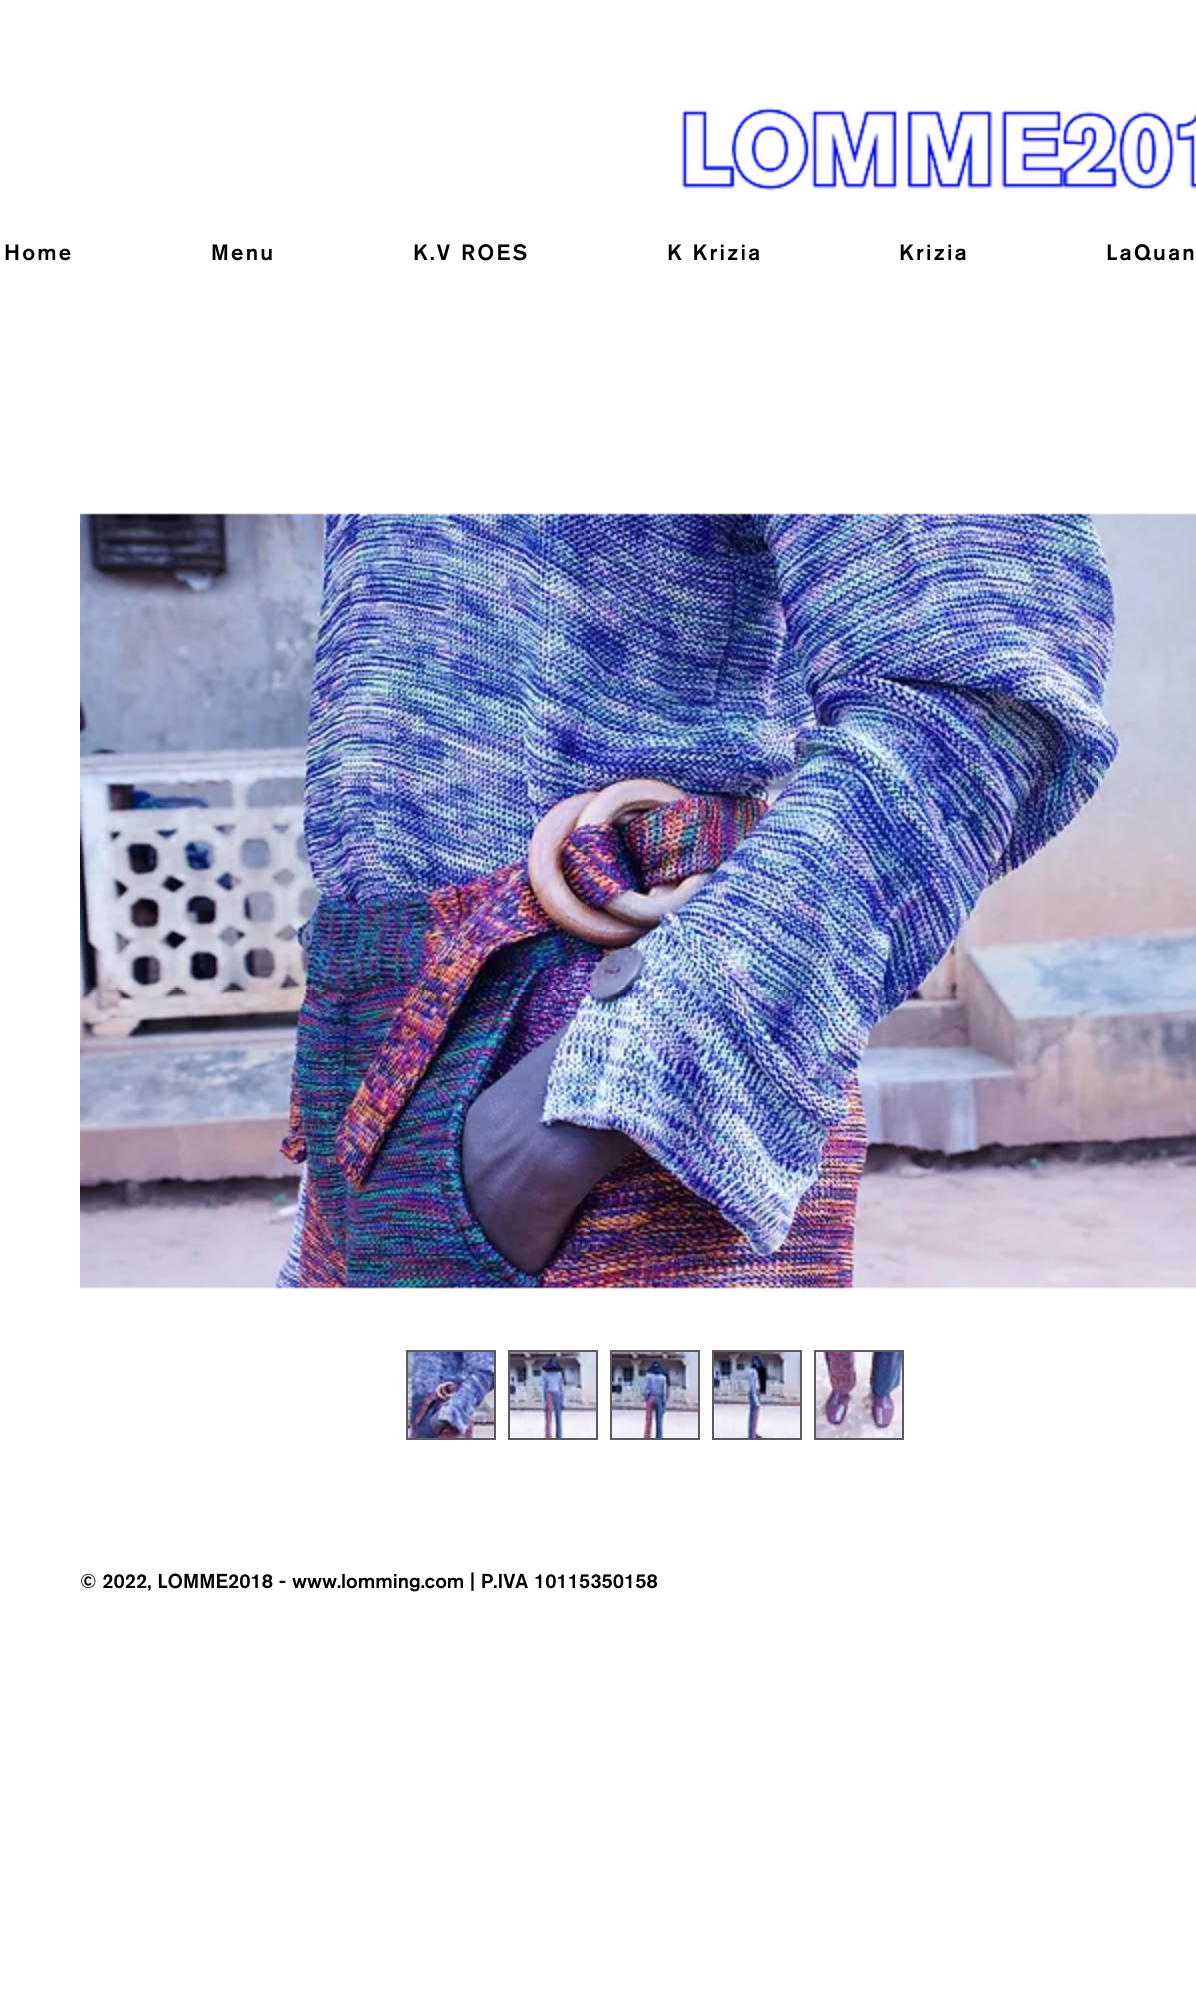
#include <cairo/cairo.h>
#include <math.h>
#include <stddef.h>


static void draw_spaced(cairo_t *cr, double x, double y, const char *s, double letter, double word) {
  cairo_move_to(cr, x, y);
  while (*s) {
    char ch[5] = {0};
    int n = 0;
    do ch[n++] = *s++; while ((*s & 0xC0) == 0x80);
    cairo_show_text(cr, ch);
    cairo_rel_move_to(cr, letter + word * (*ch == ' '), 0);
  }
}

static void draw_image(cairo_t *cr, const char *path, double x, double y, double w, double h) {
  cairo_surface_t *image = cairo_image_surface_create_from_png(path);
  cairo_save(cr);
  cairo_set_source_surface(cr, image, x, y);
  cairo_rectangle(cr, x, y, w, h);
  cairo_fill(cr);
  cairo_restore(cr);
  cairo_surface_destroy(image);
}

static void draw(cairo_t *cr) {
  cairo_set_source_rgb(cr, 1, 1, 1);
  cairo_paint(cr);
  draw_image(cr, "images/1.png", 681, 107, 515, 84);
  draw_image(cr, "images/2.png", 80, 513, 1116, 776);
  cairo_set_source_rgb(cr, 91 / 255.0, 91 / 255.0, 91 / 255.0);
  cairo_rectangle(cr, 406, 1350, 90, 90);
  cairo_fill(cr);
  draw_image(cr, "images/3.png", 408, 1352, 86, 86);
  cairo_rectangle(cr, 508, 1350, 90, 90);
  cairo_fill(cr);
  draw_image(cr, "images/4.png", 510, 1352, 86, 86);
  cairo_rectangle(cr, 610, 1350, 90, 90);
  cairo_fill(cr);
  draw_image(cr, "images/5.png", 612, 1352, 86, 86);
  cairo_rectangle(cr, 712, 1350, 90, 90);
  cairo_fill(cr);
  draw_image(cr, "images/6.png", 714, 1352, 86, 86);
  cairo_rectangle(cr, 814, 1350, 90, 90);
  cairo_fill(cr);
  draw_image(cr, "images/7.png", 816, 1352, 86, 86);
  cairo_select_font_face(cr, "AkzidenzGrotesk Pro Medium", CAIRO_FONT_SLANT_NORMAL, CAIRO_FONT_WEIGHT_NORMAL);
  cairo_set_font_size(cr, 22);
  cairo_set_source_rgb(cr, 0, 0, 0);
  draw_spaced(cr, 4, 260, "Home", 2.25, 0);
  draw_spaced(cr, 211, 260, "Menu", 2.25, 0);
  draw_spaced(cr, 413, 260, "K.V ROES", 2.25, 0);
  draw_spaced(cr, 667, 260, "K Krizia", 2.25, 0);
  draw_spaced(cr, 899, 260, "Krizia", 2.25, 0);
  draw_spaced(cr, 1106, 260, "LaQuan", 2.25, 0);
  cairo_set_font_size(cr, 20);
  cairo_move_to(cr, 80, 1588);
  cairo_show_text(cr, "© 2022, LOMME2018 - www.lomming.com | P.IVA 10115350158");
}

int main(void) {
  cairo_surface_t *surface = cairo_image_surface_create(CAIRO_FORMAT_RGB24, 1196, 2001);
  cairo_t *cr = cairo_create(surface);
  cairo_font_options_t *options = cairo_font_options_create();
  cairo_font_options_set_hint_metrics(options, CAIRO_HINT_METRICS_OFF);
  cairo_font_options_set_hint_style(options, CAIRO_HINT_STYLE_NONE);
  cairo_set_font_options(cr, options);
  cairo_set_miter_limit(cr, 4);
  draw(cr);
  cairo_surface_write_to_png(surface, "out.png");
  cairo_font_options_destroy(options);
  cairo_destroy(cr);
  cairo_surface_destroy(surface);
  return 0;
}
